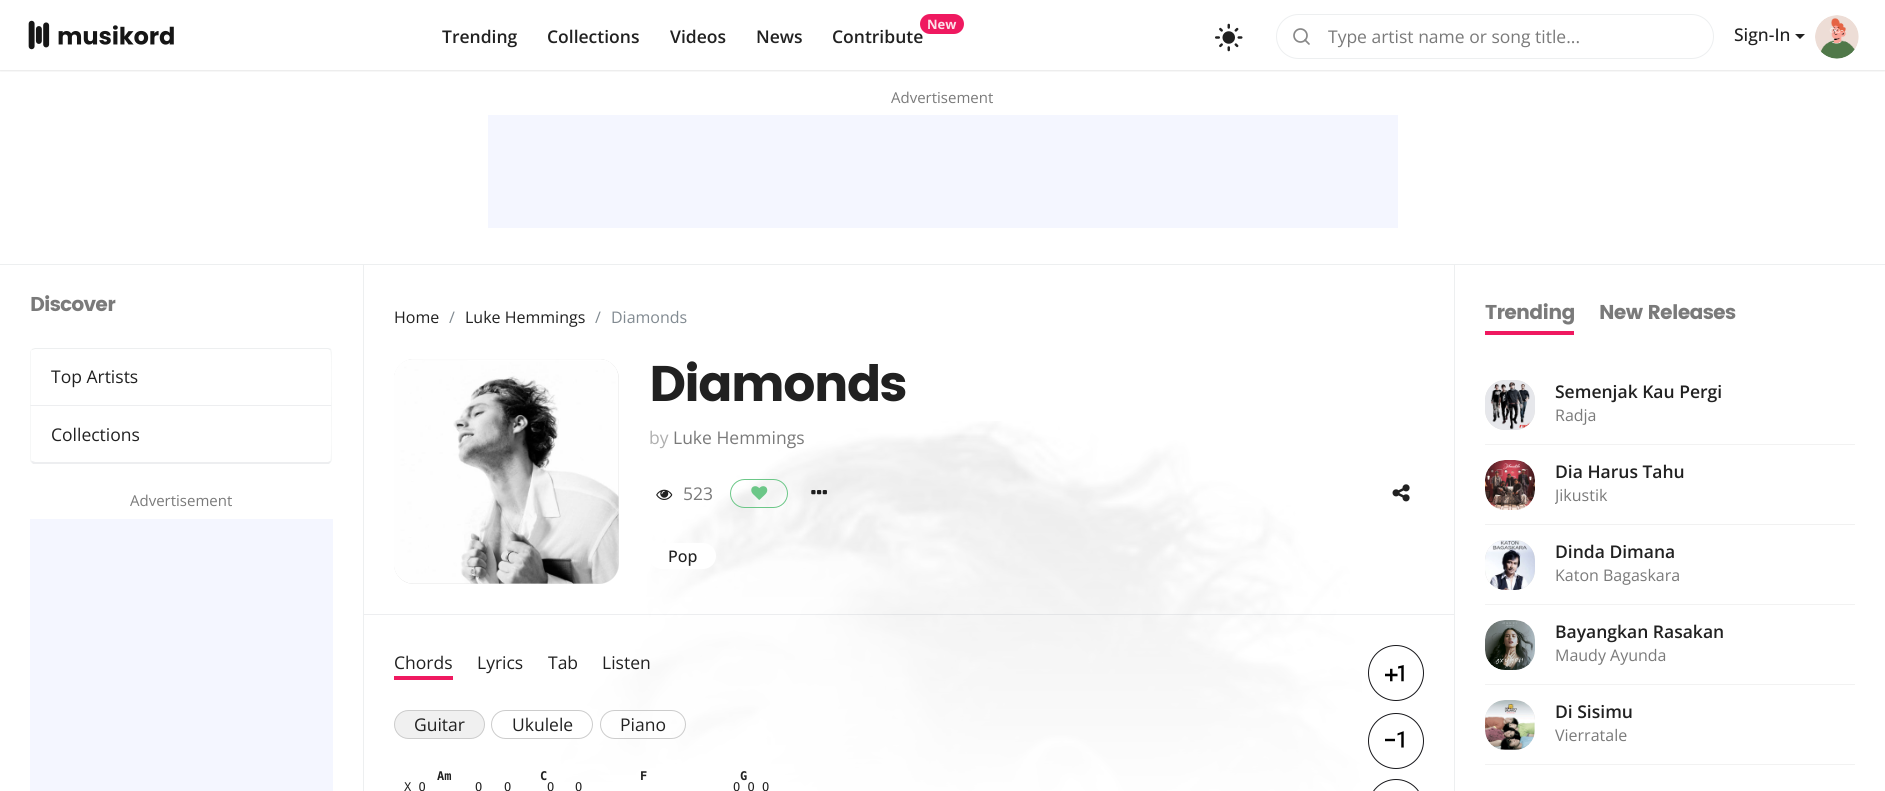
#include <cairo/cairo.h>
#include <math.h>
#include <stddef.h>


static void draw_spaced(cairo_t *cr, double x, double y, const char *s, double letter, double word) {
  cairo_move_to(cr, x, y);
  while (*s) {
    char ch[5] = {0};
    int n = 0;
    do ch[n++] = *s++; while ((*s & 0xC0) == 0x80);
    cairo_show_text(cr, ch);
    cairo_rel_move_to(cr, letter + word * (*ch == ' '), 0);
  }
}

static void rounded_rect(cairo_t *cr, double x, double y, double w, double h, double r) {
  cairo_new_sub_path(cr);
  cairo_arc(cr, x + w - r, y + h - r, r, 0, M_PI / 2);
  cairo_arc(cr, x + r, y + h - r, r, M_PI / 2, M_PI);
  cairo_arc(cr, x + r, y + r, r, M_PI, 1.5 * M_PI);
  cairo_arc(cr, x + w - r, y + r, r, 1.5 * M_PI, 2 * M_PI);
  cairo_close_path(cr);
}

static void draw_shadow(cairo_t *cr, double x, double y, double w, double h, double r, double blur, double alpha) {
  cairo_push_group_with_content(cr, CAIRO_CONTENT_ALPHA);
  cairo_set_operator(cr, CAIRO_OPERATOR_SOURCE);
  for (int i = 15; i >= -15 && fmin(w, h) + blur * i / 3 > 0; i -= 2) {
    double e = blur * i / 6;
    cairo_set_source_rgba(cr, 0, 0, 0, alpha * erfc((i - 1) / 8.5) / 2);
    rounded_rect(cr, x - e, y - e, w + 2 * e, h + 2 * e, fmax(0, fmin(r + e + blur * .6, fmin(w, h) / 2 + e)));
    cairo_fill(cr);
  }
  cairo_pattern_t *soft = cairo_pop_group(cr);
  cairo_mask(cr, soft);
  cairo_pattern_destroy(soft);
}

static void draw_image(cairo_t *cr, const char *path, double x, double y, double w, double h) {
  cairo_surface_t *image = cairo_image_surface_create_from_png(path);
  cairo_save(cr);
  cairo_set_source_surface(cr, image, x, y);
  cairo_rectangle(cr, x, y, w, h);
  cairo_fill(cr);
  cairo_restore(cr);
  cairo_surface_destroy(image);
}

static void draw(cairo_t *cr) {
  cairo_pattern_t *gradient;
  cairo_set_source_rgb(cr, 1, 1, 1);
  cairo_paint(cr);
  cairo_save(cr);
  cairo_rectangle(cr, 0, 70, 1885, 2);
  cairo_clip(cr);
  cairo_set_source_rgb(cr, 0, 0, 0);
  draw_shadow(cr, 0, 1, 1885, 70, 0, 1, 0.1);
  cairo_restore(cr);
  draw_image(cr, "images/1.png", 28, 20, 146, 30);
  draw_image(cr, "images/2.png", 1215, 23, 28, 29);
  rounded_rect(cr, 1276.5, 14.5, 437, 44, 22);
  cairo_set_source_rgb(cr, 237 / 255.0, 239 / 255.0, 240 / 255.0);
  cairo_set_line_width(cr, 1);
  cairo_stroke(cr);
  cairo_arc(cr, 1300.5, 35.5, 6.5, 0, 2 * M_PI);
  cairo_set_source_rgb(cr, 136 / 255.0, 136 / 255.0, 136 / 255.0);
  cairo_set_line_width(cr, 1.7);
  cairo_stroke(cr);
  cairo_new_path(cr);
  cairo_move_to(cr, 1309, 44);
  cairo_line_to(cr, 1305, 40);
  cairo_set_line_cap(cr, CAIRO_LINE_CAP_ROUND);
  cairo_set_line_join(cr, CAIRO_LINE_JOIN_ROUND);
  cairo_stroke(cr);
  cairo_set_source_rgb(cr, 33 / 255.0, 33 / 255.0, 33 / 255.0);
  cairo_new_path(cr);
  cairo_move_to(cr, 1795, 34);
  cairo_line_to(cr, 1805, 34);
  cairo_line_to(cr, 1800, 39);
  cairo_close_path(cr);
  cairo_fill(cr);
  draw_image(cr, "images/3.png", 1815, 15, 44, 44);
  cairo_set_source_rgb(cr, 237 / 255.0, 239 / 255.0, 240 / 255.0);
  cairo_rectangle(cr, 0, 264, 1885, 1);
  cairo_fill(cr);
  cairo_set_source_rgb(cr, 244 / 255.0, 246 / 255.0, 1);
  cairo_rectangle(cr, 488, 115, 910, 113);
  cairo_fill(cr);
  cairo_set_source_rgb(cr, 237 / 255.0, 239 / 255.0, 240 / 255.0);
  cairo_rectangle(cr, 363, 265, 1, 526);
  cairo_fill(cr);
  cairo_new_path(cr);
  cairo_move_to(cr, 35, 348);
  cairo_line_to(cr, 32, 349);
  cairo_line_to(cr, 32, 350);
  cairo_line_to(cr, 35, 349);
  cairo_line_to(cr, 328, 349);
  cairo_line_to(cr, 330, 350);
  cairo_line_to(cr, 331, 349);
  cairo_line_to(cr, 328, 348);
  cairo_close_path(cr);
  cairo_fill(cr);
  cairo_set_source_rgba(cr, 120 / 255.0, 130 / 255.0, 140 / 255.0, 0.07);
  cairo_new_path(cr);
  cairo_move_to(cr, 332, 406);
  cairo_line_to(cr, 332, 352);
  cairo_line_to(cr, 331, 349);
  cairo_line_to(cr, 330, 350);
  cairo_curve_to(cr, 332, 352, 331, 398, 331, 405);
  cairo_close_path(cr);
  cairo_fill(cr);
  cairo_new_path(cr);
  cairo_move_to(cr, 30, 352);
  cairo_line_to(cr, 30, 406);
  cairo_line_to(cr, 31, 405);
  cairo_line_to(cr, 31, 351);
  cairo_line_to(cr, 32, 350);
  cairo_line_to(cr, 32, 349);
  cairo_curve_to(cr, 31, 350, 30, 351, 30, 352);
  cairo_close_path(cr);
  cairo_fill(cr);
  cairo_set_source_rgb(cr, 237 / 255.0, 238 / 255.0, 240 / 255.0);
  cairo_new_path(cr);
  cairo_move_to(cr, 30, 405);
  cairo_line_to(cr, 31, 406);
  cairo_line_to(cr, 331, 406);
  cairo_line_to(cr, 332, 405);
  cairo_close_path(cr);
  cairo_fill(cr);
  cairo_set_source_rgb(cr, 246 / 255.0, 247 / 255.0, 247 / 255.0);
  cairo_new_path(cr);
  cairo_move_to(cr, 332, 406);
  cairo_line_to(cr, 332, 459);
  cairo_curve_to(cr, 332, 460, 332, 461, 331, 462);
  cairo_line_to(cr, 330, 461);
  cairo_curve_to(cr, 332, 460, 331, 413, 331, 406);
  cairo_close_path(cr);
  cairo_fill(cr);
  cairo_set_source_rgba(cr, 120 / 255.0, 130 / 255.0, 140 / 255.0, 0.13);
  cairo_new_path(cr);
  cairo_move_to(cr, 33, 464);
  cairo_line_to(cr, 31, 462);
  cairo_line_to(cr, 32, 461);
  cairo_line_to(cr, 35, 462);
  cairo_line_to(cr, 328, 462);
  cairo_line_to(cr, 330, 461);
  cairo_line_to(cr, 331, 462);
  cairo_line_to(cr, 329, 464);
  cairo_close_path(cr);
  cairo_fill(cr);
  cairo_set_source_rgba(cr, 120 / 255.0, 130 / 255.0, 140 / 255.0, 0.07);
  cairo_new_path(cr);
  cairo_move_to(cr, 31, 406);
  cairo_line_to(cr, 30, 405);
  cairo_line_to(cr, 30, 459);
  cairo_curve_to(cr, 30, 460, 30, 462, 31, 462);
  cairo_line_to(cr, 32, 461);
  cairo_curve_to(cr, 32, 461, 31, 460, 31, 459);
  cairo_close_path(cr);
  cairo_fill(cr);
  cairo_set_source_rgb(cr, 244 / 255.0, 246 / 255.0, 1);
  cairo_rectangle(cr, 30, 519, 303, 272);
  cairo_fill(cr);
  cairo_set_source_rgb(cr, 237 / 255.0, 239 / 255.0, 240 / 255.0);
  cairo_rectangle(cr, 1454, 265, 1, 526);
  cairo_fill(cr);
  draw_image(cr, "images/16.png", 558, 421, 804, 370);
  gradient = cairo_pattern_create_linear(943, 376, 943, 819);
  cairo_pattern_add_color_stop_rgba(gradient, 0, 1, 1, 1, 0);
  cairo_pattern_add_color_stop_rgba(gradient, 1, 1, 1, 1, 1);
  cairo_set_source(cr, gradient);
  cairo_pattern_destroy(gradient);
  cairo_rectangle(cr, 558, 438, 804, 353);
  cairo_fill(cr);
  cairo_set_source_rgba(cr, 120 / 255.0, 130 / 255.0, 140 / 255.0, 0.13);
  cairo_rectangle(cr, 364, 614, 1090, 1);
  cairo_fill(cr);
  cairo_set_source_rgb(cr, 228 / 255.0, 228 / 255.0, 228 / 255.0);
  rounded_rect(cr, 394, 359, 225, 225, 20);
  cairo_fill(cr);
  draw_image(cr, "images/4.png", 394, 359, 225, 225);
  draw_image(cr, "images/5.png", 656, 489, 17, 11);
  rounded_rect(cr, 730.5, 479.5, 57, 28, 14);
  cairo_set_source_rgb(cr, 108 / 255.0, 199 / 255.0, 136 / 255.0);
  cairo_set_line_width(cr, 1);
  cairo_set_line_cap(cr, CAIRO_LINE_CAP_BUTT);
  cairo_set_line_join(cr, CAIRO_LINE_JOIN_MITER);
  cairo_stroke(cr);
  draw_image(cr, "images/6.png", 751, 486, 17, 14);
  draw_image(cr, "images/7.png", 811, 490, 16, 5);
  draw_image(cr, "images/8.png", 1392, 484, 18, 18);
  cairo_set_source_rgb(cr, 1, 1, 1);
  rounded_rect(cr, 649, 543, 67, 26, 13);
  cairo_fill(cr);
  cairo_set_source_rgb(cr, 239 / 255.0, 25 / 255.0, 96 / 255.0);
  cairo_rectangle(cr, 394, 676, 59, 4);
  cairo_fill(cr);
  cairo_set_source_rgb(cr, 240 / 255.0, 240 / 255.0, 240 / 255.0);
  rounded_rect(cr, 394.5, 710.5, 90, 28, 14);
  cairo_fill_preserve(cr);
  cairo_set_source_rgb(cr, 204 / 255.0, 204 / 255.0, 204 / 255.0);
  cairo_stroke(cr);
  rounded_rect(cr, 491.5, 710.5, 101, 28, 14);
  cairo_stroke(cr);
  rounded_rect(cr, 600.5, 710.5, 85, 28, 14);
  cairo_stroke(cr);
  cairo_arc(cr, 1396, 673, 27.5, 0, 2 * M_PI);
  cairo_set_source_rgb(cr, 23 / 255.0, 23 / 255.0, 27 / 255.0);
  cairo_stroke(cr);
  draw_image(cr, "images/9.png", 1385, 665, 19, 17);
  cairo_arc(cr, 1396, 741, 27.5, 0, 2 * M_PI);
  cairo_stroke(cr);
  draw_image(cr, "images/10.png", 1385, 731, 19, 17);
  rounded_rect(cr, 1368.5, 779.5, 55, 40, 27.5);
  cairo_stroke(cr);
  cairo_set_source_rgb(cr, 239 / 255.0, 25 / 255.0, 96 / 255.0);
  cairo_rectangle(cr, 1485, 331, 89, 4);
  cairo_fill(cr);
  cairo_set_source_rgb(cr, 228 / 255.0, 228 / 255.0, 228 / 255.0);
  rounded_rect(cr, 1485, 380, 50, 50, 20);
  cairo_fill(cr);
  draw_image(cr, "images/11.png", 1485, 380, 50, 50);
  cairo_set_source_rgb(cr, 242 / 255.0, 242 / 255.0, 242 / 255.0);
  cairo_rectangle(cr, 1485, 444, 370, 1);
  cairo_fill(cr);
  cairo_set_source_rgb(cr, 228 / 255.0, 228 / 255.0, 228 / 255.0);
  rounded_rect(cr, 1485, 460, 50, 50, 20);
  cairo_fill(cr);
  draw_image(cr, "images/12.png", 1485, 460, 50, 50);
  cairo_set_source_rgb(cr, 241 / 255.0, 241 / 255.0, 241 / 255.0);
  cairo_rectangle(cr, 1485, 524, 370, 1);
  cairo_fill(cr);
  cairo_set_source_rgb(cr, 228 / 255.0, 228 / 255.0, 228 / 255.0);
  rounded_rect(cr, 1485, 540, 50, 50, 20);
  cairo_fill(cr);
  draw_image(cr, "images/13.png", 1485, 540, 50, 50);
  cairo_set_source_rgb(cr, 242 / 255.0, 242 / 255.0, 242 / 255.0);
  cairo_rectangle(cr, 1485, 604, 370, 1);
  cairo_fill(cr);
  cairo_set_source_rgb(cr, 228 / 255.0, 228 / 255.0, 228 / 255.0);
  rounded_rect(cr, 1485, 620, 50, 50, 20);
  cairo_fill(cr);
  draw_image(cr, "images/14.png", 1485, 620, 50, 50);
  cairo_set_source_rgb(cr, 242 / 255.0, 242 / 255.0, 242 / 255.0);
  cairo_rectangle(cr, 1485, 684, 370, 1);
  cairo_fill(cr);
  cairo_set_source_rgb(cr, 228 / 255.0, 228 / 255.0, 228 / 255.0);
  rounded_rect(cr, 1485, 700, 50, 50, 20);
  cairo_fill(cr);
  draw_image(cr, "images/15.png", 1485, 700, 50, 50);
  cairo_set_source_rgb(cr, 242 / 255.0, 242 / 255.0, 242 / 255.0);
  cairo_rectangle(cr, 1485, 764, 370, 1);
  cairo_fill(cr);
  cairo_select_font_face(cr, "Open Sans SemiBold", CAIRO_FONT_SLANT_NORMAL, CAIRO_FONT_WEIGHT_NORMAL);
  cairo_set_font_size(cr, 17.5);
  cairo_set_source_rgb(cr, 33 / 255.0, 33 / 255.0, 33 / 255.0);
  cairo_move_to(cr, 442, 43);
  cairo_show_text(cr, "Trending");
  cairo_move_to(cr, 547, 43);
  cairo_show_text(cr, "Collections");
  cairo_move_to(cr, 670, 43);
  cairo_show_text(cr, "Videos");
  cairo_move_to(cr, 756, 43);
  cairo_show_text(cr, "News");
  cairo_move_to(cr, 832, 43);
  cairo_show_text(cr, "Contribute");
  cairo_set_source_rgb(cr, 239 / 255.0, 25 / 255.0, 96 / 255.0);
  rounded_rect(cr, 920, 14, 44, 20, 10);
  cairo_fill(cr);
  cairo_select_font_face(cr, "Open Sans", CAIRO_FONT_SLANT_NORMAL, CAIRO_FONT_WEIGHT_BOLD);
  cairo_set_font_size(cr, 13);
  cairo_set_source_rgb(cr, 253 / 255.0, 225 / 255.0, 234 / 255.0);
  cairo_move_to(cr, 927, 29);
  cairo_show_text(cr, "New");
  cairo_select_font_face(cr, "Open Sans", CAIRO_FONT_SLANT_NORMAL, CAIRO_FONT_WEIGHT_NORMAL);
  cairo_set_font_size(cr, 17.5);
  cairo_set_source_rgb(cr, 122 / 255.0, 122 / 255.0, 122 / 255.0);
  cairo_move_to(cr, 1328, 43);
  cairo_show_text(cr, "Type artist name or song title...");
  cairo_select_font_face(cr, "Open Sans Medium", CAIRO_FONT_SLANT_NORMAL, CAIRO_FONT_WEIGHT_NORMAL);
  cairo_set_source_rgb(cr, 33 / 255.0, 33 / 255.0, 33 / 255.0);
  cairo_move_to(cr, 1734, 41);
  cairo_show_text(cr, "Sign-In");
  cairo_select_font_face(cr, "Open Sans", CAIRO_FONT_SLANT_NORMAL, CAIRO_FONT_WEIGHT_NORMAL);
  cairo_set_font_size(cr, 15);
  cairo_set_source_rgb(cr, 122 / 255.0, 122 / 255.0, 122 / 255.0);
  cairo_move_to(cr, 891, 103);
  cairo_show_text(cr, "Advertisement");
  cairo_select_font_face(cr, "Poppins", CAIRO_FONT_SLANT_NORMAL, CAIRO_FONT_WEIGHT_BOLD);
  cairo_set_font_size(cr, 20);
  draw_spaced(cr, 30, 311, "Discover", -0.75, 0);
  cairo_select_font_face(cr, "Open Sans", CAIRO_FONT_SLANT_NORMAL, CAIRO_FONT_WEIGHT_NORMAL);
  cairo_set_font_size(cr, 17.5);
  cairo_set_source_rgb(cr, 33 / 255.0, 33 / 255.0, 33 / 255.0);
  cairo_move_to(cr, 51, 383);
  cairo_show_text(cr, "Top Artists");
  cairo_move_to(cr, 51, 441);
  cairo_show_text(cr, "Collections");
  cairo_set_font_size(cr, 15);
  cairo_set_source_rgb(cr, 122 / 255.0, 122 / 255.0, 122 / 255.0);
  cairo_move_to(cr, 130, 506);
  cairo_show_text(cr, "Advertisement");
  cairo_set_font_size(cr, 16);
  cairo_set_source_rgb(cr, 33 / 255.0, 33 / 255.0, 33 / 255.0);
  cairo_move_to(cr, 394, 323);
  cairo_show_text(cr, "Home");
  cairo_set_source_rgb(cr, 129 / 255.0, 138 / 255.0, 145 / 255.0);
  cairo_move_to(cr, 449, 323);
  cairo_show_text(cr, "/");
  cairo_set_source_rgb(cr, 33 / 255.0, 33 / 255.0, 33 / 255.0);
  cairo_move_to(cr, 465, 323);
  cairo_show_text(cr, "Luke Hemmings");
  cairo_set_source_rgb(cr, 129 / 255.0, 138 / 255.0, 145 / 255.0);
  cairo_move_to(cr, 595, 323);
  cairo_show_text(cr, "/");
  cairo_move_to(cr, 611, 323);
  cairo_show_text(cr, "Diamonds");
  cairo_select_font_face(cr, "Poppins", CAIRO_FONT_SLANT_NORMAL, CAIRO_FONT_WEIGHT_BOLD);
  cairo_set_font_size(cr, 50);
  cairo_set_source_rgb(cr, 33 / 255.0, 33 / 255.0, 33 / 255.0);
  draw_spaced(cr, 649, 401, "Diamonds", -2, 0);
  cairo_select_font_face(cr, "Open Sans", CAIRO_FONT_SLANT_NORMAL, CAIRO_FONT_WEIGHT_NORMAL);
  cairo_set_font_size(cr, 17.5);
  cairo_set_source_rgb(cr, 175 / 255.0, 175 / 255.0, 175 / 255.0);
  cairo_move_to(cr, 649, 444);
  cairo_show_text(cr, "by");
  cairo_set_source_rgb(cr, 122 / 255.0, 122 / 255.0, 122 / 255.0);
  cairo_move_to(cr, 673, 444);
  cairo_show_text(cr, "Luke Hemmings");
  cairo_move_to(cr, 683, 500);
  cairo_show_text(cr, "523");
  cairo_select_font_face(cr, "Open Sans Medium", CAIRO_FONT_SLANT_NORMAL, CAIRO_FONT_WEIGHT_NORMAL);
  cairo_set_font_size(cr, 16);
  cairo_set_source_rgb(cr, 33 / 255.0, 33 / 255.0, 33 / 255.0);
  cairo_move_to(cr, 668, 562);
  cairo_show_text(cr, "Pop");
  cairo_select_font_face(cr, "Open Sans", CAIRO_FONT_SLANT_NORMAL, CAIRO_FONT_WEIGHT_NORMAL);
  cairo_set_font_size(cr, 17.5);
  cairo_move_to(cr, 394, 669);
  cairo_show_text(cr, "Chords");
  cairo_move_to(cr, 477, 669);
  cairo_show_text(cr, "Lyrics");
  cairo_move_to(cr, 548, 669);
  cairo_show_text(cr, "Tab");
  cairo_move_to(cr, 602, 669);
  cairo_show_text(cr, "Listen");
  cairo_move_to(cr, 414, 731);
  cairo_show_text(cr, "Guitar");
  cairo_move_to(cr, 512, 731);
  cairo_show_text(cr, "Ukulele");
  cairo_move_to(cr, 620, 731);
  cairo_show_text(cr, "Piano");
  cairo_select_font_face(cr, "DejaVu Sans Mono", CAIRO_FONT_SLANT_NORMAL, CAIRO_FONT_WEIGHT_BOLD);
  cairo_set_font_size(cr, 12);
  cairo_move_to(cr, 437, 780);
  cairo_show_text(cr, "Am");
  cairo_select_font_face(cr, "DejaVu Sans Mono", CAIRO_FONT_SLANT_NORMAL, CAIRO_FONT_WEIGHT_NORMAL);
  cairo_move_to(cr, 404, 791);
  cairo_show_text(cr, "X O");
  cairo_move_to(cr, 475, 791);
  cairo_show_text(cr, "O");
  cairo_select_font_face(cr, "DejaVu Sans Mono", CAIRO_FONT_SLANT_NORMAL, CAIRO_FONT_WEIGHT_BOLD);
  cairo_move_to(cr, 540, 780);
  cairo_show_text(cr, "C");
  cairo_select_font_face(cr, "DejaVu Sans Mono", CAIRO_FONT_SLANT_NORMAL, CAIRO_FONT_WEIGHT_NORMAL);
  cairo_move_to(cr, 504, 791);
  cairo_show_text(cr, "O");
  cairo_move_to(cr, 547, 791);
  cairo_show_text(cr, "O");
  cairo_move_to(cr, 575, 791);
  cairo_show_text(cr, "O");
  cairo_select_font_face(cr, "DejaVu Sans Mono", CAIRO_FONT_SLANT_NORMAL, CAIRO_FONT_WEIGHT_BOLD);
  cairo_move_to(cr, 640, 780);
  cairo_show_text(cr, "F");
  cairo_move_to(cr, 740, 780);
  cairo_show_text(cr, "G");
  cairo_select_font_face(cr, "DejaVu Sans Mono", CAIRO_FONT_SLANT_NORMAL, CAIRO_FONT_WEIGHT_NORMAL);
  cairo_move_to(cr, 733, 791);
  cairo_show_text(cr, "O O O");
  cairo_select_font_face(cr, "Poppins", CAIRO_FONT_SLANT_NORMAL, CAIRO_FONT_WEIGHT_BOLD);
  cairo_set_font_size(cr, 20);
  cairo_set_source_rgb(cr, 122 / 255.0, 122 / 255.0, 122 / 255.0);
  draw_spaced(cr, 1485, 319, "Trending", -0.75, 0);
  draw_spaced(cr, 1599, 319, "New Releases", -0.75, 0);
  cairo_select_font_face(cr, "Open Sans SemiBold", CAIRO_FONT_SLANT_NORMAL, CAIRO_FONT_WEIGHT_NORMAL);
  cairo_set_font_size(cr, 17.5);
  cairo_set_source_rgb(cr, 33 / 255.0, 33 / 255.0, 33 / 255.0);
  cairo_move_to(cr, 1555, 398);
  cairo_show_text(cr, "Semenjak Kau Pergi");
  cairo_select_font_face(cr, "Open Sans", CAIRO_FONT_SLANT_NORMAL, CAIRO_FONT_WEIGHT_NORMAL);
  cairo_set_font_size(cr, 16);
  cairo_set_source_rgb(cr, 122 / 255.0, 122 / 255.0, 122 / 255.0);
  cairo_move_to(cr, 1555, 421);
  cairo_show_text(cr, "Radja");
  cairo_select_font_face(cr, "Open Sans SemiBold", CAIRO_FONT_SLANT_NORMAL, CAIRO_FONT_WEIGHT_NORMAL);
  cairo_set_font_size(cr, 17.5);
  cairo_set_source_rgb(cr, 33 / 255.0, 33 / 255.0, 33 / 255.0);
  cairo_move_to(cr, 1555, 478);
  cairo_show_text(cr, "Dia Harus Tahu");
  cairo_save(cr);
  cairo_rectangle(cr, 1555, 484, 300, 24);
  cairo_clip(cr);
  cairo_select_font_face(cr, "Open Sans", CAIRO_FONT_SLANT_NORMAL, CAIRO_FONT_WEIGHT_NORMAL);
  cairo_set_font_size(cr, 16);
  cairo_set_source_rgb(cr, 122 / 255.0, 122 / 255.0, 122 / 255.0);
  cairo_move_to(cr, 1555, 501);
  cairo_show_text(cr, "Jikustik");
  cairo_restore(cr);
  cairo_move_to(cr, 1555, 558);
  cairo_show_text(cr, "Dinda Dimana");
  cairo_select_font_face(cr, "Open Sans", CAIRO_FONT_SLANT_NORMAL, CAIRO_FONT_WEIGHT_NORMAL);
  cairo_set_font_size(cr, 16);
  cairo_set_source_rgb(cr, 122 / 255.0, 122 / 255.0, 122 / 255.0);
  cairo_move_to(cr, 1555, 581);
  cairo_show_text(cr, "Katon Bagaskara");
  cairo_select_font_face(cr, "Open Sans SemiBold", CAIRO_FONT_SLANT_NORMAL, CAIRO_FONT_WEIGHT_NORMAL);
  cairo_set_font_size(cr, 17.5);
  cairo_set_source_rgb(cr, 33 / 255.0, 33 / 255.0, 33 / 255.0);
  cairo_move_to(cr, 1555, 638);
  cairo_show_text(cr, "Bayangkan Rasakan");
  cairo_select_font_face(cr, "Open Sans", CAIRO_FONT_SLANT_NORMAL, CAIRO_FONT_WEIGHT_NORMAL);
  cairo_set_font_size(cr, 16);
  cairo_set_source_rgb(cr, 122 / 255.0, 122 / 255.0, 122 / 255.0);
  cairo_move_to(cr, 1555, 661);
  cairo_show_text(cr, "Maudy Ayunda");
  cairo_select_font_face(cr, "Open Sans SemiBold", CAIRO_FONT_SLANT_NORMAL, CAIRO_FONT_WEIGHT_NORMAL);
  cairo_set_font_size(cr, 17.5);
  cairo_set_source_rgb(cr, 33 / 255.0, 33 / 255.0, 33 / 255.0);
  cairo_move_to(cr, 1555, 718);
  cairo_show_text(cr, "Di Sisimu");
  cairo_select_font_face(cr, "Open Sans", CAIRO_FONT_SLANT_NORMAL, CAIRO_FONT_WEIGHT_NORMAL);
  cairo_set_font_size(cr, 16);
  cairo_set_source_rgb(cr, 122 / 255.0, 122 / 255.0, 122 / 255.0);
  cairo_move_to(cr, 1555, 741);
  cairo_show_text(cr, "Vierratale");
}

int main(void) {
  cairo_surface_t *surface = cairo_image_surface_create(CAIRO_FORMAT_RGB24, 1885, 791);
  cairo_t *cr = cairo_create(surface);
  cairo_font_options_t *options = cairo_font_options_create();
  cairo_font_options_set_hint_metrics(options, CAIRO_HINT_METRICS_OFF);
  cairo_font_options_set_hint_style(options, CAIRO_HINT_STYLE_NONE);
  cairo_set_font_options(cr, options);
  cairo_set_miter_limit(cr, 4);
  draw(cr);
  cairo_surface_write_to_png(surface, "out.png");
  cairo_font_options_destroy(options);
  cairo_destroy(cr);
  cairo_surface_destroy(surface);
  return 0;
}
